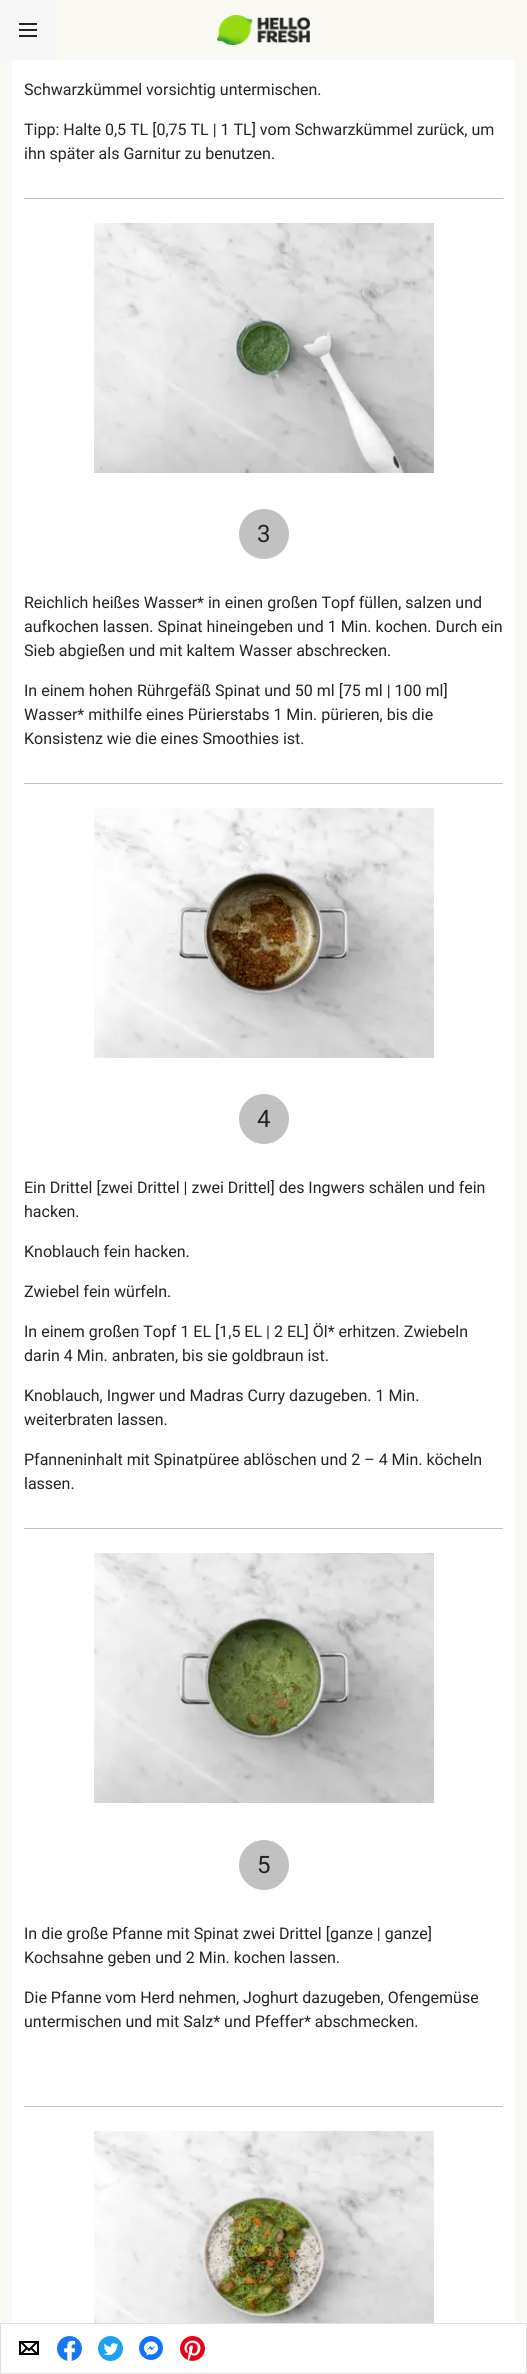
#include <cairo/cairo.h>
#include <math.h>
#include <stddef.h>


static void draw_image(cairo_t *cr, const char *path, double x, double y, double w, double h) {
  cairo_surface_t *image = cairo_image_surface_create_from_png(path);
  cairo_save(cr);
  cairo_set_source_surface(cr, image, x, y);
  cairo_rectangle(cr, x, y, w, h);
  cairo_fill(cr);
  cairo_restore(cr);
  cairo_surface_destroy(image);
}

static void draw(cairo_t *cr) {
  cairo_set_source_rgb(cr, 250 / 255.0, 248 / 255.0, 243 / 255.0);
  cairo_paint(cr);
  cairo_set_source_rgb(cr, 247 / 255.0, 247 / 255.0, 247 / 255.0);
  cairo_rectangle(cr, 0, 0, 56, 60);
  cairo_fill(cr);
  draw_image(cr, "images/1.png", 19, 23, 18, 14);
  draw_image(cr, "images/2.png", 217, 15, 93, 30);
  cairo_set_source_rgb(cr, 1, 1, 1);
  cairo_rectangle(cr, 12, 60, 503, 2263);
  cairo_fill(cr);
  cairo_set_source_rgb(cr, 193 / 255.0, 193 / 255.0, 193 / 255.0);
  cairo_rectangle(cr, 24, 198, 479, 1);
  cairo_fill(cr);
  draw_image(cr, "images/3.png", 94, 223, 340, 250);
  cairo_rectangle(cr, 24, 783, 479, 1);
  cairo_fill(cr);
  cairo_arc(cr, 264, 534, 25, 0, 2 * M_PI);
  cairo_fill(cr);
  draw_image(cr, "images/4.png", 94, 808, 340, 250);
  cairo_rectangle(cr, 24, 1528, 479, 1);
  cairo_fill(cr);
  cairo_arc(cr, 264, 1119, 25, 0, 2 * M_PI);
  cairo_fill(cr);
  draw_image(cr, "images/5.png", 94, 1553, 340, 250);
  cairo_rectangle(cr, 24, 2106, 479, 1);
  cairo_fill(cr);
  cairo_arc(cr, 264, 1865, 25, 0, 2 * M_PI);
  cairo_fill(cr);
  draw_image(cr, "images/6.png", 94, 2131, 340, 192);
  cairo_set_source_rgb(cr, 1, 1, 1);
  cairo_rectangle(cr, 0.5, 2323.5, 526, 50);
  cairo_fill_preserve(cr);
  cairo_set_source_rgb(cr, 224 / 255.0, 224 / 255.0, 224 / 255.0);
  cairo_set_line_width(cr, 1);
  cairo_stroke(cr);
  draw_image(cr, "images/7.png", 19, 2341, 20, 14);
  draw_image(cr, "images/8.png", 57, 2336, 25, 25);
  draw_image(cr, "images/9.png", 98, 2336, 25, 25);
  draw_image(cr, "images/10.png", 139, 2336, 24, 24);
  draw_image(cr, "images/11.png", 180, 2336, 25, 25);
  cairo_select_font_face(cr, "Roboto", CAIRO_FONT_SLANT_NORMAL, CAIRO_FONT_WEIGHT_NORMAL);
  cairo_set_font_size(cr, 16);
  cairo_set_source_rgb(cr, 36 / 255.0, 36 / 255.0, 36 / 255.0);
  cairo_move_to(cr, 24, 95);
  cairo_show_text(cr, "Schwarzkümmel vorsichtig untermischen.");
  cairo_move_to(cr, 24, 135);
  cairo_show_text(cr, "Tipp: Halte 0,5 TL [0,75 TL | 1 TL] vom Schwarzkümmel zurück, um");
  cairo_move_to(cr, 24, 159);
  cairo_show_text(cr, "ihn später als Garnitur zu benutzen.");
  cairo_set_font_size(cr, 24);
  cairo_move_to(cr, 257, 542);
  cairo_show_text(cr, "3");
  cairo_set_font_size(cr, 16);
  cairo_move_to(cr, 24, 608);
  cairo_show_text(cr, "Reichlich heißes Wasser* in einen großen Topf füllen, salzen und");
  cairo_move_to(cr, 24, 632);
  cairo_show_text(cr, "aufkochen lassen. Spinat hineingeben und 1 Min. kochen. Durch ein");
  cairo_move_to(cr, 24, 656);
  cairo_show_text(cr, "Sieb abgießen und mit kaltem Wasser abschrecken.");
  cairo_move_to(cr, 24, 696);
  cairo_show_text(cr, "In einem hohen Rührgefäß Spinat und 50 ml [75 ml | 100 ml]");
  cairo_move_to(cr, 24, 720);
  cairo_show_text(cr, "Wasser* mithilfe eines Pürierstabs 1 Min. pürieren, bis die");
  cairo_move_to(cr, 24, 744);
  cairo_show_text(cr, "Konsistenz wie die eines Smoothies ist.");
  cairo_set_font_size(cr, 24);
  cairo_move_to(cr, 257, 1127);
  cairo_show_text(cr, "4");
  cairo_set_font_size(cr, 16);
  cairo_move_to(cr, 24, 1193);
  cairo_show_text(cr, "Ein Drittel [zwei Drittel | zwei Drittel] des Ingwers schälen und fein");
  cairo_move_to(cr, 24, 1217);
  cairo_show_text(cr, "hacken.");
  cairo_move_to(cr, 24, 1257);
  cairo_show_text(cr, "Knoblauch fein hacken.");
  cairo_move_to(cr, 24, 1297);
  cairo_show_text(cr, "Zwiebel fein würfeln.");
  cairo_move_to(cr, 24, 1337);
  cairo_show_text(cr, "In einem großen Topf 1 EL [1,5 EL | 2 EL] Öl* erhitzen. Zwiebeln");
  cairo_move_to(cr, 24, 1361);
  cairo_show_text(cr, "darin 4 Min. anbraten, bis sie goldbraun ist.");
  cairo_move_to(cr, 24, 1401);
  cairo_show_text(cr, "Knoblauch, Ingwer und Madras Curry dazugeben. 1 Min.");
  cairo_move_to(cr, 24, 1425);
  cairo_show_text(cr, "weiterbraten lassen.");
  cairo_move_to(cr, 24, 1465);
  cairo_show_text(cr, "Pfanneninhalt mit Spinatpüree ablöschen und 2 – 4 Min. köcheln");
  cairo_move_to(cr, 24, 1489);
  cairo_show_text(cr, "lassen.");
  cairo_set_font_size(cr, 24);
  cairo_move_to(cr, 257, 1873);
  cairo_show_text(cr, "5");
  cairo_set_font_size(cr, 16);
  cairo_move_to(cr, 24, 1939);
  cairo_show_text(cr, "In die große Pfanne mit Spinat zwei Drittel [ganze | ganze]");
  cairo_move_to(cr, 24, 1963);
  cairo_show_text(cr, "Kochsahne geben und 2 Min. kochen lassen.");
  cairo_move_to(cr, 24, 2003);
  cairo_show_text(cr, "Die Pfanne vom Herd nehmen, Joghurt dazugeben, Ofengemüse");
  cairo_move_to(cr, 24, 2027);
  cairo_show_text(cr, "untermischen und mit Salz* und Pfeffer* abschmecken.");
}

int main(void) {
  cairo_surface_t *surface = cairo_image_surface_create(CAIRO_FORMAT_RGB24, 527, 2374);
  cairo_t *cr = cairo_create(surface);
  cairo_font_options_t *options = cairo_font_options_create();
  cairo_font_options_set_hint_metrics(options, CAIRO_HINT_METRICS_OFF);
  cairo_font_options_set_hint_style(options, CAIRO_HINT_STYLE_NONE);
  cairo_set_font_options(cr, options);
  cairo_set_miter_limit(cr, 4);
  draw(cr);
  cairo_surface_write_to_png(surface, "out.png");
  cairo_font_options_destroy(options);
  cairo_destroy(cr);
  cairo_surface_destroy(surface);
  return 0;
}
